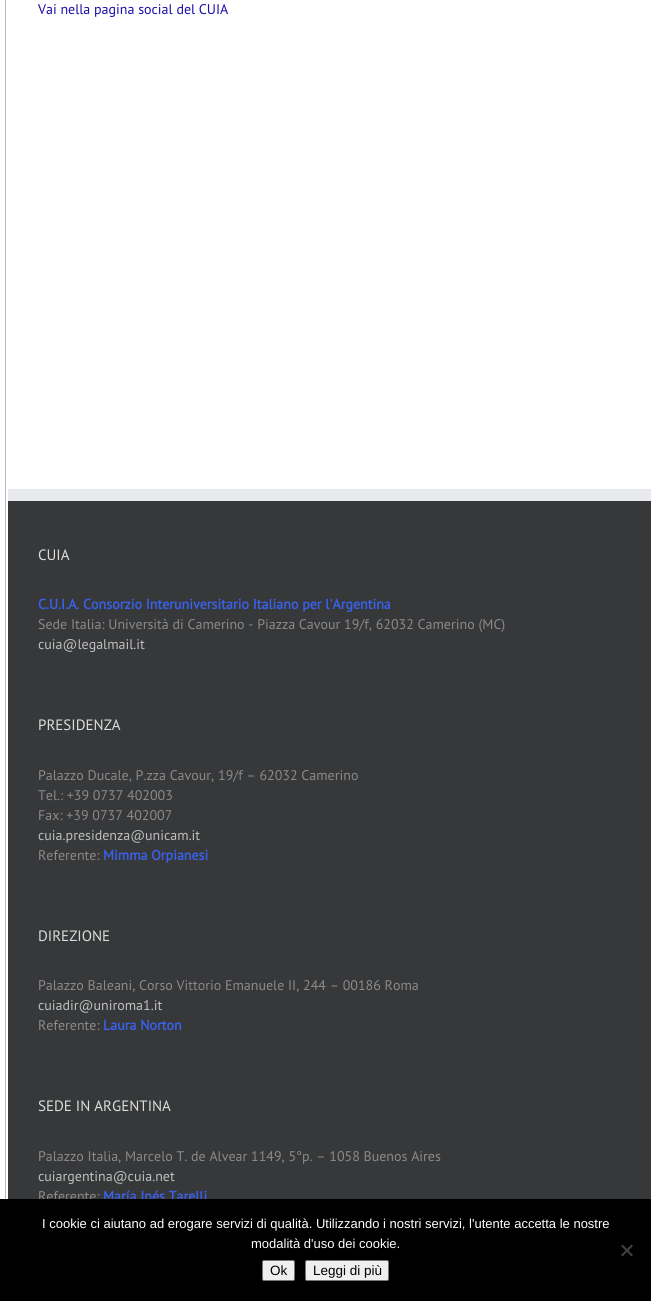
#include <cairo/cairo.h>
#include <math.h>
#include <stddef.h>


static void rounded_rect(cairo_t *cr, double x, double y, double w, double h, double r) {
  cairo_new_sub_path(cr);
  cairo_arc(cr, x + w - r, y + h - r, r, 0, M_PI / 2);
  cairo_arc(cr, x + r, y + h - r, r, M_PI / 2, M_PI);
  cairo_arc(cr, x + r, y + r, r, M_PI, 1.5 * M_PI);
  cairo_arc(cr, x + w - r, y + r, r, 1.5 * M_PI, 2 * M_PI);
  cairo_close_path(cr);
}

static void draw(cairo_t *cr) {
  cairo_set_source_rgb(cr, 1, 1, 1);
  cairo_paint(cr);
  cairo_rectangle(cr, 5.5, -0.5, 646, 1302);
  cairo_set_source_rgb(cr, 184 / 255.0, 184 / 255.0, 184 / 255.0);
  cairo_set_line_width(cr, 1);
  cairo_stroke(cr);
  cairo_set_source_rgb(cr, 54 / 255.0, 56 / 255.0, 57 / 255.0);
  cairo_rectangle(cr, 8, 501, 643, 698);
  cairo_fill(cr);
  cairo_set_source_rgb(cr, 233 / 255.0, 234 / 255.0, 238 / 255.0);
  cairo_rectangle(cr, 8, 489, 643, 12);
  cairo_fill(cr);
  cairo_select_font_face(cr, "PT Sans", CAIRO_FONT_SLANT_NORMAL, CAIRO_FONT_WEIGHT_NORMAL);
  cairo_set_font_size(cr, 14);
  cairo_set_source_rgb(cr, 26 / 255.0, 13 / 255.0, 171 / 255.0);
  cairo_move_to(cr, 38, 14);
  cairo_show_text(cr, "Vai nella pagina social del CUIA");
  cairo_set_font_size(cr, 15);
  cairo_set_source_rgb(cr, 221 / 255.0, 221 / 255.0, 221 / 255.0);
  cairo_move_to(cr, 38, 560);
  cairo_show_text(cr, "CUIA");
  cairo_select_font_face(cr, "PT Sans", CAIRO_FONT_SLANT_NORMAL, CAIRO_FONT_WEIGHT_BOLD);
  cairo_set_font_size(cr, 14);
  cairo_set_source_rgb(cr, 57 / 255.0, 97 / 255.0, 234 / 255.0);
  cairo_move_to(cr, 38, 609);
  cairo_show_text(cr, "C.U.I.A. Consorzio Interuniversitario Italiano per l'Argentina");
  cairo_select_font_face(cr, "PT Sans", CAIRO_FONT_SLANT_NORMAL, CAIRO_FONT_WEIGHT_NORMAL);
  cairo_set_source_rgb(cr, 140 / 255.0, 137 / 255.0, 137 / 255.0);
  cairo_move_to(cr, 38, 629);
  cairo_show_text(cr, "Sede Italia: Università di Camerino - Piazza Cavour 19/f, 62032 Camerino (MC)");
  cairo_set_source_rgb(cr, 191 / 255.0, 191 / 255.0, 191 / 255.0);
  cairo_move_to(cr, 38, 649);
  cairo_show_text(cr, "cuia@legalmail.it");
  cairo_set_font_size(cr, 15);
  cairo_set_source_rgb(cr, 221 / 255.0, 221 / 255.0, 221 / 255.0);
  cairo_move_to(cr, 38, 730);
  cairo_show_text(cr, "PRESIDENZA");
  cairo_set_font_size(cr, 14);
  cairo_set_source_rgb(cr, 140 / 255.0, 137 / 255.0, 137 / 255.0);
  cairo_move_to(cr, 38, 780);
  cairo_show_text(cr, "Palazzo Ducale, P.zza Cavour, 19/f – 62032 Camerino");
  cairo_move_to(cr, 38, 800);
  cairo_show_text(cr, "Tel.: +39 0737 402003");
  cairo_move_to(cr, 38, 820);
  cairo_show_text(cr, "Fax: +39 0737 402007");
  cairo_set_source_rgb(cr, 191 / 255.0, 191 / 255.0, 191 / 255.0);
  cairo_move_to(cr, 38, 840);
  cairo_show_text(cr, "cuia.presidenza@unicam.it");
  cairo_set_source_rgb(cr, 140 / 255.0, 137 / 255.0, 137 / 255.0);
  cairo_move_to(cr, 38, 860);
  cairo_show_text(cr, "Referente:");
  cairo_select_font_face(cr, "PT Sans", CAIRO_FONT_SLANT_NORMAL, CAIRO_FONT_WEIGHT_BOLD);
  cairo_set_source_rgb(cr, 57 / 255.0, 97 / 255.0, 234 / 255.0);
  cairo_move_to(cr, 103, 860);
  cairo_show_text(cr, "Mimma Orpianesi");
  cairo_select_font_face(cr, "PT Sans", CAIRO_FONT_SLANT_NORMAL, CAIRO_FONT_WEIGHT_NORMAL);
  cairo_set_font_size(cr, 15);
  cairo_set_source_rgb(cr, 221 / 255.0, 221 / 255.0, 221 / 255.0);
  cairo_move_to(cr, 38, 941);
  cairo_show_text(cr, "DIREZIONE");
  cairo_set_font_size(cr, 14);
  cairo_set_source_rgb(cr, 140 / 255.0, 137 / 255.0, 137 / 255.0);
  cairo_move_to(cr, 38, 990);
  cairo_show_text(cr, "Palazzo Baleani, Corso Vittorio Emanuele II, 244 – 00186 Roma");
  cairo_set_source_rgb(cr, 191 / 255.0, 191 / 255.0, 191 / 255.0);
  cairo_move_to(cr, 38, 1010);
  cairo_show_text(cr, "cuiadir@uniroma1.it");
  cairo_set_source_rgb(cr, 140 / 255.0, 137 / 255.0, 137 / 255.0);
  cairo_move_to(cr, 38, 1030);
  cairo_show_text(cr, "Referente:");
  cairo_select_font_face(cr, "PT Sans", CAIRO_FONT_SLANT_NORMAL, CAIRO_FONT_WEIGHT_BOLD);
  cairo_set_source_rgb(cr, 57 / 255.0, 97 / 255.0, 234 / 255.0);
  cairo_move_to(cr, 103, 1030);
  cairo_show_text(cr, "Laura Norton");
  cairo_select_font_face(cr, "PT Sans", CAIRO_FONT_SLANT_NORMAL, CAIRO_FONT_WEIGHT_NORMAL);
  cairo_set_font_size(cr, 15);
  cairo_set_source_rgb(cr, 221 / 255.0, 221 / 255.0, 221 / 255.0);
  cairo_move_to(cr, 38, 1111);
  cairo_show_text(cr, "SEDE IN ARGENTINA");
  cairo_set_font_size(cr, 14);
  cairo_set_source_rgb(cr, 140 / 255.0, 137 / 255.0, 137 / 255.0);
  cairo_move_to(cr, 38, 1161);
  cairo_show_text(cr, "Palazzo Italia, Marcelo T. de Alvear 1149, 5°p. – 1058 Buenos Aires");
  cairo_set_source_rgb(cr, 191 / 255.0, 191 / 255.0, 191 / 255.0);
  cairo_move_to(cr, 38, 1181);
  cairo_show_text(cr, "cuiargentina@cuia.net");
  cairo_set_source_rgb(cr, 140 / 255.0, 137 / 255.0, 137 / 255.0);
  cairo_move_to(cr, 38, 1201);
  cairo_show_text(cr, "Referente:");
  cairo_select_font_face(cr, "PT Sans", CAIRO_FONT_SLANT_NORMAL, CAIRO_FONT_WEIGHT_BOLD);
  cairo_set_source_rgb(cr, 57 / 255.0, 97 / 255.0, 234 / 255.0);
  cairo_move_to(cr, 103, 1201);
  cairo_show_text(cr, "María Inés Tarelli");
  cairo_set_source_rgb(cr, 0, 0, 0);
  cairo_rectangle(cr, 0, 1199, 651, 102);
  cairo_fill(cr);
  cairo_select_font_face(cr, "Liberation Sans", CAIRO_FONT_SLANT_NORMAL, CAIRO_FONT_WEIGHT_NORMAL);
  cairo_set_font_size(cr, 13);
  cairo_set_source_rgb(cr, 1, 1, 1);
  cairo_move_to(cr, 42, 1228);
  cairo_show_text(cr, "I cookie ci aiutano ad erogare servizi di qualità. Utilizzando i nostri servizi, l'utente accetta le nostre");
  cairo_move_to(cr, 251, 1248);
  cairo_show_text(cr, "modalità d'uso dei cookie.");
  cairo_set_source_rgb(cr, 64 / 255.0, 64 / 255.0, 64 / 255.0);
  cairo_new_path(cr);
  cairo_move_to(cr, 631.5, 1244.5);
  cairo_line_to(cr, 633, 1246);
  cairo_line_to(cr, 622.5, 1256.5);
  cairo_line_to(cr, 621, 1255);
  cairo_close_path(cr);
  cairo_fill(cr);
  cairo_new_path(cr);
  cairo_move_to(cr, 621, 1246);
  cairo_line_to(cr, 622.5, 1244.5);
  cairo_line_to(cr, 633, 1255);
  cairo_line_to(cr, 631.5, 1256.5);
  cairo_close_path(cr);
  cairo_fill(cr);
  cairo_set_source_rgb(cr, 239 / 255.0, 239 / 255.0, 239 / 255.0);
  rounded_rect(cr, 262.5, 1260.5, 32, 20, 1.5);
  cairo_fill_preserve(cr);
  cairo_set_source_rgb(cr, 118 / 255.0, 118 / 255.0, 118 / 255.0);
  cairo_stroke(cr);
  cairo_set_font_size(cr, 13.5);
  cairo_set_source_rgb(cr, 0, 0, 0);
  cairo_move_to(cr, 270, 1275);
  cairo_show_text(cr, "Ok");
  cairo_set_source_rgb(cr, 239 / 255.0, 239 / 255.0, 239 / 255.0);
  rounded_rect(cr, 305.5, 1260.5, 83, 20, 1.5);
  cairo_fill_preserve(cr);
  cairo_set_source_rgb(cr, 118 / 255.0, 118 / 255.0, 118 / 255.0);
  cairo_stroke(cr);
  cairo_set_source_rgb(cr, 0, 0, 0);
  cairo_move_to(cr, 313, 1275);
  cairo_show_text(cr, "Leggi di più");
}

int main(void) {
  cairo_surface_t *surface = cairo_image_surface_create(CAIRO_FORMAT_RGB24, 651, 1301);
  cairo_t *cr = cairo_create(surface);
  cairo_font_options_t *options = cairo_font_options_create();
  cairo_font_options_set_hint_metrics(options, CAIRO_HINT_METRICS_OFF);
  cairo_font_options_set_hint_style(options, CAIRO_HINT_STYLE_NONE);
  cairo_set_font_options(cr, options);
  cairo_set_miter_limit(cr, 4);
  draw(cr);
  cairo_surface_write_to_png(surface, "out.png");
  cairo_font_options_destroy(options);
  cairo_destroy(cr);
  cairo_surface_destroy(surface);
  return 0;
}
